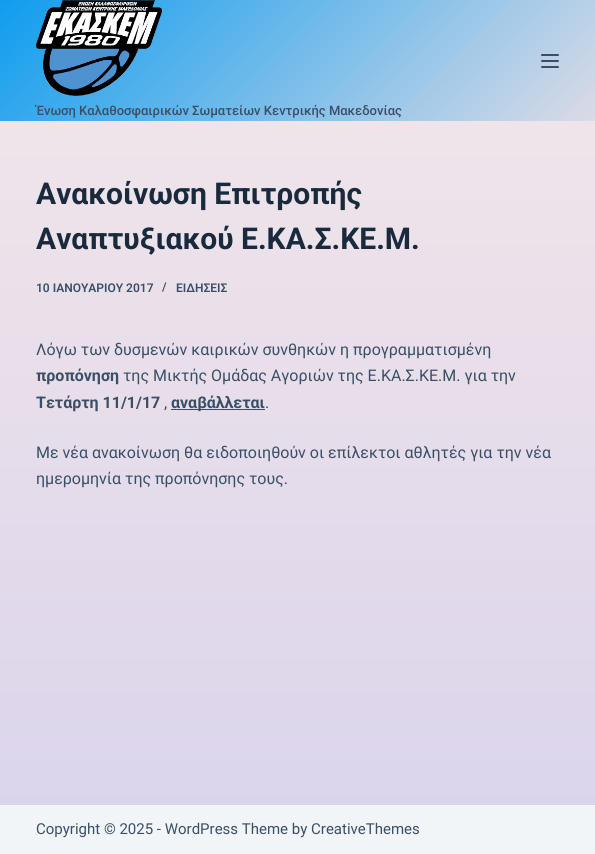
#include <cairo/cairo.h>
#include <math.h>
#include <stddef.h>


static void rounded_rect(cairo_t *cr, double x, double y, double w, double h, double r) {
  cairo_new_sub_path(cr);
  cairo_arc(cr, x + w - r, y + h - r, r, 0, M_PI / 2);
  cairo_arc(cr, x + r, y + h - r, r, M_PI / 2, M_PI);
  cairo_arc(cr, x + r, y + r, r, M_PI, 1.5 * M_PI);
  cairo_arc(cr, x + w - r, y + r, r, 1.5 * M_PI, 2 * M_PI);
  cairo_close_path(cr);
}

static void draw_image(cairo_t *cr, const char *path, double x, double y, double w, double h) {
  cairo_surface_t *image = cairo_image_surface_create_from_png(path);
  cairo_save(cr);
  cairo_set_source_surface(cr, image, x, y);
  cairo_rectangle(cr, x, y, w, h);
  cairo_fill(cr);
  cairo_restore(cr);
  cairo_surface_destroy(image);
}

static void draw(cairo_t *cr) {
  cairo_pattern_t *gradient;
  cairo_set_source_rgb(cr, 1, 1, 1);
  cairo_paint(cr);
  gradient = cairo_pattern_create_linear(298, 854, 298, 0);
  cairo_pattern_add_color_stop_rgba(gradient, 0, 218 / 255.0, 212 / 255.0, 236 / 255.0, 1);
  cairo_pattern_add_color_stop_rgba(gradient, 0.01, 218 / 255.0, 212 / 255.0, 236 / 255.0, 1);
  cairo_pattern_add_color_stop_rgba(gradient, 1, 243 / 255.0, 231 / 255.0, 233 / 255.0, 1);
  cairo_set_source(cr, gradient);
  cairo_pattern_destroy(gradient);
  cairo_rectangle(cr, 0, 121, 595, 684);
  cairo_fill(cr);
  gradient = cairo_pattern_create_linear(118, -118, 477, 240);
  cairo_pattern_add_color_stop_rgba(gradient, 0, 15 / 255.0, 157 / 255.0, 239 / 255.0, 1);
  cairo_pattern_add_color_stop_rgba(gradient, 1, 219 / 255.0, 219 / 255.0, 230 / 255.0, 1);
  cairo_set_source(cr, gradient);
  cairo_pattern_destroy(gradient);
  cairo_rectangle(cr, 0, 0, 595, 121);
  cairo_fill(cr);
  cairo_set_source_rgb(cr, 58 / 255.0, 79 / 255.0, 102 / 255.0);
  rounded_rect(cr, 541, 54, 18, 2, 1);
  cairo_fill(cr);
  rounded_rect(cr, 541, 60, 18, 2, 1);
  cairo_fill(cr);
  rounded_rect(cr, 541, 66, 18, 2, 1);
  cairo_fill(cr);
  draw_image(cr, "images/1.png", 36, 0, 126, 96);
  cairo_rectangle(cr, 171, 409, 94, 1);
  cairo_fill(cr);
  cairo_set_source_rgb(cr, 242 / 255.0, 245 / 255.0, 247 / 255.0);
  cairo_rectangle(cr, 0, 805, 595, 49);
  cairo_fill(cr);
  cairo_select_font_face(cr, "Roboto Medium", CAIRO_FONT_SLANT_NORMAL, CAIRO_FONT_WEIGHT_NORMAL);
  cairo_set_font_size(cr, 13);
  cairo_set_source_rgb(cr, 58 / 255.0, 79 / 255.0, 102 / 255.0);
  cairo_move_to(cr, 36, 115);
  cairo_show_text(cr, "Ένωση Καλαθοσφαιρικών Σωματείων Κεντρικής Μακεδονίας");
  cairo_select_font_face(cr, "Roboto", CAIRO_FONT_SLANT_NORMAL, CAIRO_FONT_WEIGHT_BOLD);
  cairo_set_font_size(cr, 30);
  cairo_set_source_rgb(cr, 25 / 255.0, 42 / 255.0, 61 / 255.0);
  cairo_move_to(cr, 36, 204);
  cairo_show_text(cr, "Ανακοίνωση Επιτροπής");
  cairo_move_to(cr, 36, 249);
  cairo_show_text(cr, "Αναπτυξιακού Ε.ΚΑ.Σ.ΚΕ.Μ.");
  cairo_select_font_face(cr, "Roboto SemiBold", CAIRO_FONT_SLANT_NORMAL, CAIRO_FONT_WEIGHT_NORMAL);
  cairo_set_font_size(cr, 12);
  cairo_set_source_rgb(cr, 58 / 255.0, 79 / 255.0, 102 / 255.0);
  cairo_move_to(cr, 36, 292);
  cairo_show_text(cr, "10 ΙΑΝΟΥΑΡΙΟΥ 2017");
  cairo_move_to(cr, 162, 291);
  cairo_show_text(cr, "/");
  cairo_move_to(cr, 176, 292);
  cairo_show_text(cr, "ΕΙΔΗΣΕΙΣ");
  cairo_select_font_face(cr, "Roboto", CAIRO_FONT_SLANT_NORMAL, CAIRO_FONT_WEIGHT_NORMAL);
  cairo_set_font_size(cr, 16);
  cairo_move_to(cr, 36, 355);
  cairo_show_text(cr, "Λόγω των δυσμενών καιρικών συνθηκών η προγραμματισμένη");
  cairo_select_font_face(cr, "Roboto", CAIRO_FONT_SLANT_NORMAL, CAIRO_FONT_WEIGHT_BOLD);
  cairo_move_to(cr, 36, 381);
  cairo_show_text(cr, "προπόνηση");
  cairo_select_font_face(cr, "Roboto", CAIRO_FONT_SLANT_NORMAL, CAIRO_FONT_WEIGHT_NORMAL);
  cairo_move_to(cr, 123, 381);
  cairo_show_text(cr, "της Μικτής Ομάδας Αγοριών της Ε.ΚΑ.Σ.ΚΕ.Μ. για την");
  cairo_select_font_face(cr, "Roboto", CAIRO_FONT_SLANT_NORMAL, CAIRO_FONT_WEIGHT_BOLD);
  cairo_move_to(cr, 36, 408);
  cairo_show_text(cr, "Τετάρτη 11/1/17");
  cairo_select_font_face(cr, "Roboto", CAIRO_FONT_SLANT_NORMAL, CAIRO_FONT_WEIGHT_NORMAL);
  cairo_move_to(cr, 164, 408);
  cairo_show_text(cr, ",");
  cairo_select_font_face(cr, "Roboto", CAIRO_FONT_SLANT_NORMAL, CAIRO_FONT_WEIGHT_BOLD);
  cairo_move_to(cr, 171, 408);
  cairo_show_text(cr, "αναβάλλεται");
  cairo_select_font_face(cr, "Roboto", CAIRO_FONT_SLANT_NORMAL, CAIRO_FONT_WEIGHT_NORMAL);
  cairo_move_to(cr, 265, 408);
  cairo_show_text(cr, ".");
  cairo_move_to(cr, 36, 458);
  cairo_show_text(cr, "Με νέα ανακοίνωση θα ειδοποιηθούν οι επίλεκτοι αθλητές για την νέα");
  cairo_move_to(cr, 36, 484);
  cairo_show_text(cr, "ημερομηνία της προπόνησης τους.");
  cairo_set_font_size(cr, 15);
  cairo_move_to(cr, 36, 834);
  cairo_show_text(cr, "Copyright © 2025 - WordPress Theme by CreativeThemes");
}

int main(void) {
  cairo_surface_t *surface = cairo_image_surface_create(CAIRO_FORMAT_RGB24, 595, 854);
  cairo_t *cr = cairo_create(surface);
  cairo_font_options_t *options = cairo_font_options_create();
  cairo_font_options_set_hint_metrics(options, CAIRO_HINT_METRICS_OFF);
  cairo_font_options_set_hint_style(options, CAIRO_HINT_STYLE_NONE);
  cairo_set_font_options(cr, options);
  cairo_set_miter_limit(cr, 4);
  draw(cr);
  cairo_surface_write_to_png(surface, "out.png");
  cairo_font_options_destroy(options);
  cairo_destroy(cr);
  cairo_surface_destroy(surface);
  return 0;
}
